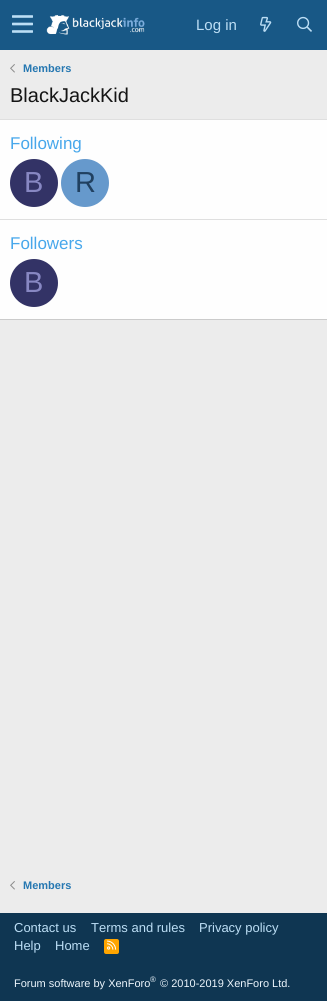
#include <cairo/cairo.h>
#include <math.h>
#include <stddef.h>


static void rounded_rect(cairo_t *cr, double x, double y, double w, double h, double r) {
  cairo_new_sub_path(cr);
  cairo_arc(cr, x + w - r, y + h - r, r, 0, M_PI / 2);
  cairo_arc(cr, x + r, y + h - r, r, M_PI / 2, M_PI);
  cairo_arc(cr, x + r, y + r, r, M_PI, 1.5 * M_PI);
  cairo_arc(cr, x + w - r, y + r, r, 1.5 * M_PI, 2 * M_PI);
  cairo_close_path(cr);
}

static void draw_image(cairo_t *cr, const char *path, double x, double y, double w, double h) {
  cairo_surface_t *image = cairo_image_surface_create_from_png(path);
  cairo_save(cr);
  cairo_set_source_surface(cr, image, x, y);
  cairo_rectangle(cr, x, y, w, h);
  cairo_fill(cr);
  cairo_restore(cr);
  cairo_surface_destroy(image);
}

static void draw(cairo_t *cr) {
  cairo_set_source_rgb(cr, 236 / 255.0, 236 / 255.0, 236 / 255.0);
  cairo_paint(cr);
  cairo_set_source_rgb(cr, 24 / 255.0, 88 / 255.0, 134 / 255.0);
  cairo_rectangle(cr, 0, 0, 327, 50);
  cairo_fill(cr);
  draw_image(cr, "images/1.png", 12, 15, 21, 18);
  draw_image(cr, "images/2.png", 46, 15, 99, 20);
  draw_image(cr, "images/3.png", 260, 16, 12, 16);
  draw_image(cr, "images/4.png", 297, 16, 15, 16);
  draw_image(cr, "images/5.png", 10, 64, 5, 9);
  cairo_set_source_rgb(cr, 254 / 255.0, 254 / 255.0, 254 / 255.0);
  cairo_rectangle(cr, 0, 120, 327, 199);
  cairo_fill(cr);
  cairo_set_source_rgb(cr, 223 / 255.0, 223 / 255.0, 223 / 255.0);
  cairo_rectangle(cr, 0, 119, 327, 1);
  cairo_fill(cr);
  cairo_set_source_rgb(cr, 203 / 255.0, 203 / 255.0, 203 / 255.0);
  cairo_rectangle(cr, 0, 319, 327, 1);
  cairo_fill(cr);
  cairo_set_source_rgb(cr, 51 / 255.0, 51 / 255.0, 102 / 255.0);
  cairo_arc(cr, 34, 183, 24, 0, 2 * M_PI);
  cairo_fill(cr);
  cairo_set_source_rgb(cr, 102 / 255.0, 153 / 255.0, 204 / 255.0);
  cairo_arc(cr, 85, 183, 24, 0, 2 * M_PI);
  cairo_fill(cr);
  cairo_set_source_rgb(cr, 223 / 255.0, 223 / 255.0, 223 / 255.0);
  cairo_rectangle(cr, 0, 219, 327, 1);
  cairo_fill(cr);
  cairo_set_source_rgb(cr, 51 / 255.0, 51 / 255.0, 102 / 255.0);
  cairo_arc(cr, 34, 283, 24, 0, 2 * M_PI);
  cairo_fill(cr);
  draw_image(cr, "images/5.png", 10, 881, 5, 9);
  cairo_set_source_rgb(cr, 15 / 255.0, 54 / 255.0, 82 / 255.0);
  cairo_rectangle(cr, 0, 913, 327, 88);
  cairo_fill(cr);
  cairo_set_source_rgb(cr, 1, 165 / 255.0, 0);
  rounded_rect(cr, 104, 939, 15, 15, 2);
  cairo_fill(cr);
  draw_image(cr, "images/6.png", 107, 940, 10, 10);
  cairo_select_font_face(cr, "Liberation Sans", CAIRO_FONT_SLANT_NORMAL, CAIRO_FONT_WEIGHT_NORMAL);
  cairo_set_font_size(cr, 15);
  cairo_set_source_rgb(cr, 188 / 255.0, 222 / 255.0, 245 / 255.0);
  cairo_move_to(cr, 196, 30);
  cairo_show_text(cr, "Log in");
  cairo_select_font_face(cr, "Liberation Sans", CAIRO_FONT_SLANT_NORMAL, CAIRO_FONT_WEIGHT_BOLD);
  cairo_set_font_size(cr, 11);
  cairo_set_source_rgb(cr, 37 / 255.0, 119 / 255.0, 177 / 255.0);
  cairo_move_to(cr, 23, 72);
  cairo_show_text(cr, "Members");
  cairo_select_font_face(cr, "Liberation Sans", CAIRO_FONT_SLANT_NORMAL, CAIRO_FONT_WEIGHT_NORMAL);
  cairo_set_font_size(cr, 20);
  cairo_set_source_rgb(cr, 20 / 255.0, 20 / 255.0, 20 / 255.0);
  cairo_move_to(cr, 10, 102);
  cairo_show_text(cr, "BlackJackKid");
  cairo_set_font_size(cr, 17);
  cairo_set_source_rgb(cr, 71 / 255.0, 167 / 255.0, 235 / 255.0);
  cairo_move_to(cr, 10, 149);
  cairo_show_text(cr, "Following");
  cairo_set_font_size(cr, 29);
  cairo_set_source_rgb(cr, 136 / 255.0, 136 / 255.0, 195 / 255.0);
  cairo_move_to(cr, 24, 192);
  cairo_show_text(cr, "B");
  cairo_set_source_rgb(cr, 32 / 255.0, 64 / 255.0, 96 / 255.0);
  cairo_move_to(cr, 75, 192);
  cairo_show_text(cr, "R");
  cairo_set_font_size(cr, 17);
  cairo_set_source_rgb(cr, 71 / 255.0, 167 / 255.0, 235 / 255.0);
  cairo_move_to(cr, 10, 249);
  cairo_show_text(cr, "Followers");
  cairo_set_font_size(cr, 29);
  cairo_set_source_rgb(cr, 136 / 255.0, 136 / 255.0, 195 / 255.0);
  cairo_move_to(cr, 24, 292);
  cairo_show_text(cr, "B");
  cairo_select_font_face(cr, "Liberation Sans", CAIRO_FONT_SLANT_NORMAL, CAIRO_FONT_WEIGHT_BOLD);
  cairo_set_font_size(cr, 11);
  cairo_set_source_rgb(cr, 37 / 255.0, 119 / 255.0, 177 / 255.0);
  cairo_move_to(cr, 23, 889);
  cairo_show_text(cr, "Members");
  cairo_select_font_face(cr, "Liberation Sans", CAIRO_FONT_SLANT_NORMAL, CAIRO_FONT_WEIGHT_NORMAL);
  cairo_set_font_size(cr, 13);
  cairo_set_source_rgb(cr, 188 / 255.0, 222 / 255.0, 245 / 255.0);
  cairo_move_to(cr, 14, 932);
  cairo_show_text(cr, "Contact us");
  cairo_move_to(cr, 91, 932);
  cairo_show_text(cr, "Terms and rules");
  cairo_move_to(cr, 199, 932);
  cairo_show_text(cr, "Privacy policy");
  cairo_move_to(cr, 14, 950);
  cairo_show_text(cr, "Help");
  cairo_move_to(cr, 55, 950);
  cairo_show_text(cr, "Home");
  cairo_set_font_size(cr, 11);
  cairo_set_source_rgb(cr, 237 / 255.0, 246 / 255.0, 253 / 255.0);
  cairo_move_to(cr, 14, 987);
  cairo_show_text(cr, "Forum software by XenForo");
  cairo_set_font_size(cr, 8);
  cairo_move_to(cr, 150, 982);
  cairo_show_text(cr, "®");
  cairo_set_font_size(cr, 11);
  cairo_move_to(cr, 160, 987);
  cairo_show_text(cr, "© 2010-2019 XenForo Ltd.");
}

int main(void) {
  cairo_surface_t *surface = cairo_image_surface_create(CAIRO_FORMAT_RGB24, 327, 1001);
  cairo_t *cr = cairo_create(surface);
  cairo_font_options_t *options = cairo_font_options_create();
  cairo_font_options_set_hint_metrics(options, CAIRO_HINT_METRICS_OFF);
  cairo_font_options_set_hint_style(options, CAIRO_HINT_STYLE_NONE);
  cairo_set_font_options(cr, options);
  cairo_set_miter_limit(cr, 4);
  draw(cr);
  cairo_surface_write_to_png(surface, "out.png");
  cairo_font_options_destroy(options);
  cairo_destroy(cr);
  cairo_surface_destroy(surface);
  return 0;
}
